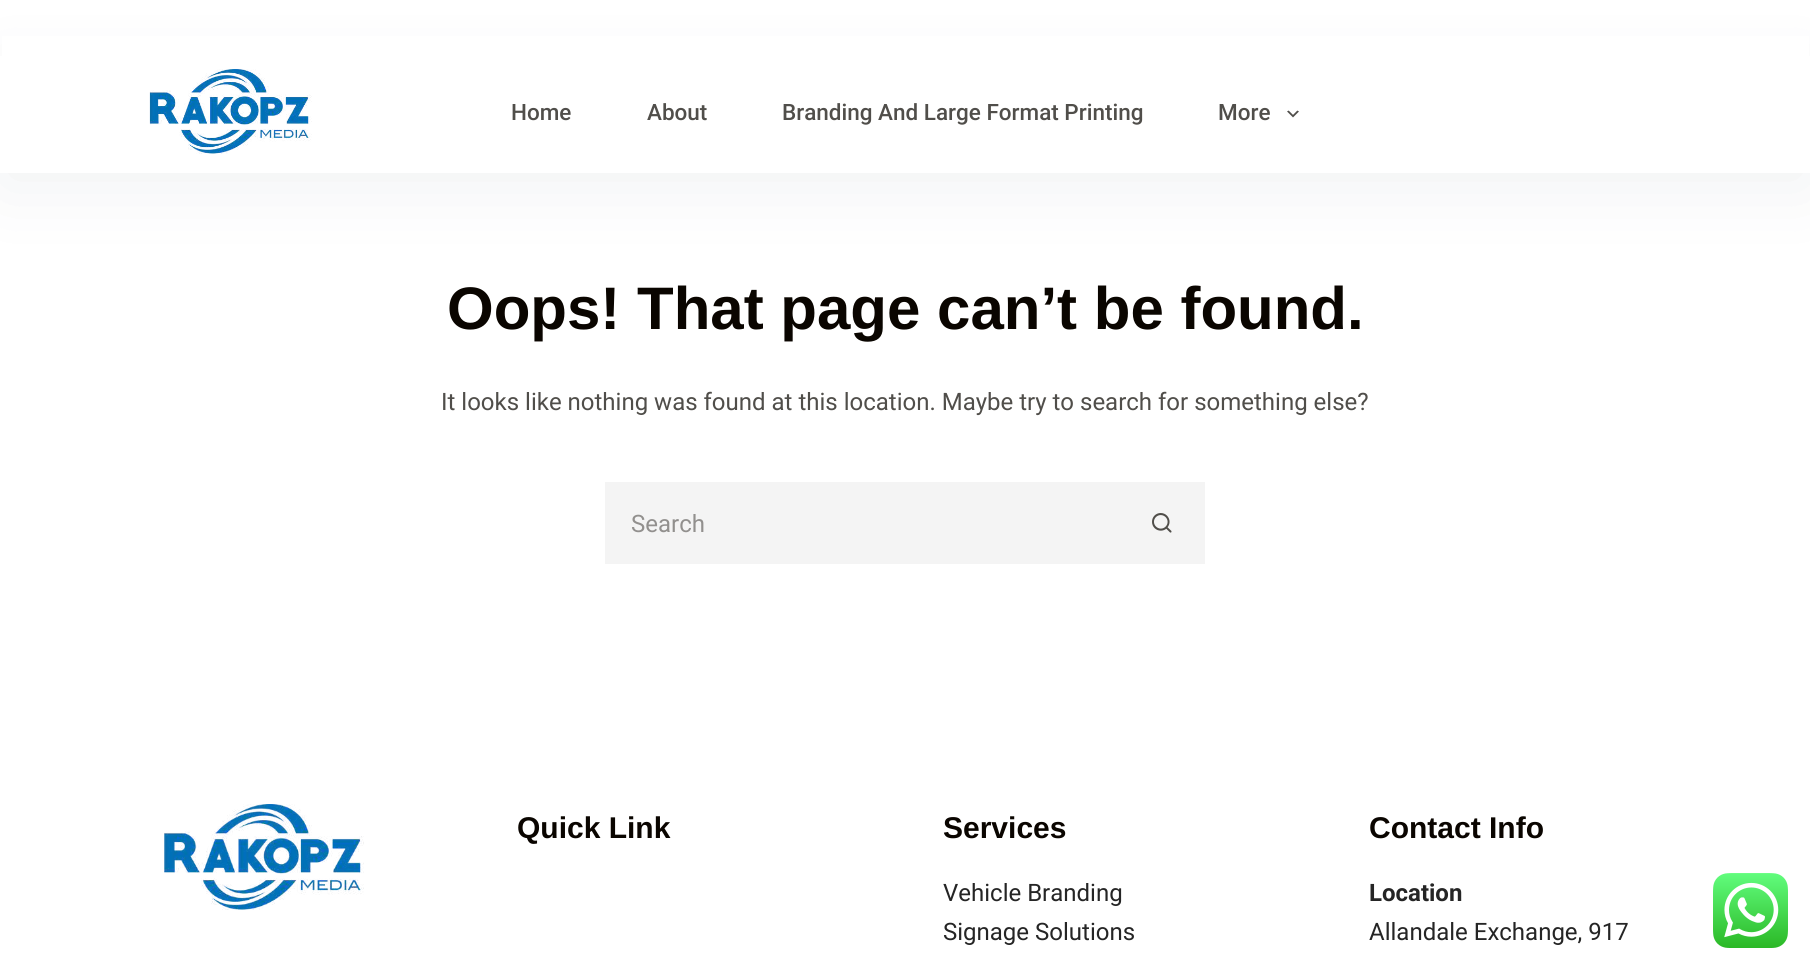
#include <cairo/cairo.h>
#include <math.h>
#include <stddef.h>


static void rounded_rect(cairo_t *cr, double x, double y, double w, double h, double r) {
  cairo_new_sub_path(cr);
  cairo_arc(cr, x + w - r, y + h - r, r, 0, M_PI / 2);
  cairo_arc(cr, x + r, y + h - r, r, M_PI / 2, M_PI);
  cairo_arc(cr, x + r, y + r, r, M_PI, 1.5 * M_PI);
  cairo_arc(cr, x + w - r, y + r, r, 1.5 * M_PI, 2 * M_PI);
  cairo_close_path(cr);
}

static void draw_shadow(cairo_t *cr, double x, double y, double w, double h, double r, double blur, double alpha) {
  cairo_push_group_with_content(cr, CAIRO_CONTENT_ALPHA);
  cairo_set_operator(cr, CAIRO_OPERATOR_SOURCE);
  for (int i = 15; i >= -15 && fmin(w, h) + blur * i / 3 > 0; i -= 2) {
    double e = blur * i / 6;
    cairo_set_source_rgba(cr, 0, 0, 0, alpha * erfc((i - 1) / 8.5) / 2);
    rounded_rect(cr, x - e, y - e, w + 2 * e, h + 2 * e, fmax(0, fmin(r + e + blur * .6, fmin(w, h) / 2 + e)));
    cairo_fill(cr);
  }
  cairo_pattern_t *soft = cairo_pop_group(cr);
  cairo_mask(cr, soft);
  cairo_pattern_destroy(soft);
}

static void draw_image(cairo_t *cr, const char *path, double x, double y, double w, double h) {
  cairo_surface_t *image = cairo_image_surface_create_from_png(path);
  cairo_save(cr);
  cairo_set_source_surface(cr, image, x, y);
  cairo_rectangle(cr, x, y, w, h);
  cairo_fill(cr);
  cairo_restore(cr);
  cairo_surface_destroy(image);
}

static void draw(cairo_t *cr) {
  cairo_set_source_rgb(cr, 1, 1, 1);
  cairo_paint(cr);
  cairo_set_source_rgb(cr, 44 / 255.0, 62 / 255.0, 80 / 255.0);
  draw_shadow(cr, 0, 71, 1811, 117, 0, 37.5, 0.07);
  cairo_set_source_rgb(cr, 1, 1, 1);
  cairo_rectangle(cr, 2, 36, 1807, 20);
  cairo_fill(cr);
  cairo_rectangle(cr, 0, 56, 1810, 117);
  cairo_fill(cr);
  draw_image(cr, "images/1.png", 149, 69, 163, 85);
  draw_image(cr, "images/2.png", 1287, 110, 12, 8);
  cairo_set_source_rgb(cr, 244 / 255.0, 244 / 255.0, 244 / 255.0);
  cairo_rectangle(cr, 605, 482, 600, 82);
  cairo_fill(cr);
  draw_image(cr, "images/3.png", 1152, 513, 20, 20);
  draw_image(cr, "images/4.png", 164, 804, 200, 106);
  draw_image(cr, "images/5.png", 1713, 873, 75, 75);
  cairo_select_font_face(cr, "Roboto Medium", CAIRO_FONT_SLANT_NORMAL, CAIRO_FONT_WEIGHT_NORMAL);
  cairo_set_font_size(cr, 22.5);
  cairo_set_source_rgb(cr, 80 / 255.0, 78 / 255.0, 74 / 255.0);
  cairo_move_to(cr, 511, 120);
  cairo_show_text(cr, "Home");
  cairo_move_to(cr, 647, 120);
  cairo_show_text(cr, "About");
  cairo_move_to(cr, 782, 120);
  cairo_show_text(cr, "Branding And Large Format Printing");
  cairo_move_to(cr, 1218, 120);
  cairo_show_text(cr, "More");
  cairo_select_font_face(cr, "Liberation Sans", CAIRO_FONT_SLANT_NORMAL, CAIRO_FONT_WEIGHT_BOLD);
  cairo_set_font_size(cr, 60);
  cairo_set_source_rgb(cr, 10 / 255.0, 5 / 255.0, 0);
  cairo_move_to(cr, 447, 329);
  cairo_show_text(cr, "Oops! That page can’t be found.");
  cairo_select_font_face(cr, "Roboto", CAIRO_FONT_SLANT_NORMAL, CAIRO_FONT_WEIGHT_NORMAL);
  cairo_set_font_size(cr, 24);
  cairo_set_source_rgb(cr, 80 / 255.0, 78 / 255.0, 74 / 255.0);
  cairo_move_to(cr, 441, 410);
  cairo_show_text(cr, "It looks like nothing was found at this location. Maybe try to search for something else?");
  cairo_set_source_rgb(cr, 146 / 255.0, 144 / 255.0, 142 / 255.0);
  cairo_move_to(cr, 631, 532);
  cairo_show_text(cr, "Search");
  cairo_select_font_face(cr, "Liberation Sans", CAIRO_FONT_SLANT_NORMAL, CAIRO_FONT_WEIGHT_BOLD);
  cairo_set_font_size(cr, 30);
  cairo_set_source_rgb(cr, 10 / 255.0, 5 / 255.0, 0);
  cairo_move_to(cr, 517, 838);
  cairo_show_text(cr, "Quick Link");
  cairo_move_to(cr, 943, 838);
  cairo_show_text(cr, "Services");
  cairo_select_font_face(cr, "Roboto", CAIRO_FONT_SLANT_NORMAL, CAIRO_FONT_WEIGHT_NORMAL);
  cairo_set_font_size(cr, 24);
  cairo_set_source_rgb(cr, 37 / 255.0, 37 / 255.0, 37 / 255.0);
  cairo_move_to(cr, 943, 901);
  cairo_show_text(cr, "Vehicle Branding");
  cairo_move_to(cr, 943, 940);
  cairo_show_text(cr, "Signage Solutions");
  cairo_select_font_face(cr, "Liberation Sans", CAIRO_FONT_SLANT_NORMAL, CAIRO_FONT_WEIGHT_BOLD);
  cairo_set_font_size(cr, 30);
  cairo_set_source_rgb(cr, 10 / 255.0, 5 / 255.0, 0);
  cairo_move_to(cr, 1369, 838);
  cairo_show_text(cr, "Contact Info");
  cairo_select_font_face(cr, "Roboto", CAIRO_FONT_SLANT_NORMAL, CAIRO_FONT_WEIGHT_BOLD);
  cairo_set_font_size(cr, 24);
  cairo_set_source_rgb(cr, 37 / 255.0, 37 / 255.0, 37 / 255.0);
  cairo_move_to(cr, 1369, 901);
  cairo_show_text(cr, "Location");
  cairo_select_font_face(cr, "Roboto", CAIRO_FONT_SLANT_NORMAL, CAIRO_FONT_WEIGHT_NORMAL);
  cairo_move_to(cr, 1369, 940);
  cairo_show_text(cr, "Allandale Exchange, 917");
}

int main(void) {
  cairo_surface_t *surface = cairo_image_surface_create(CAIRO_FORMAT_RGB24, 1810, 970);
  cairo_t *cr = cairo_create(surface);
  cairo_font_options_t *options = cairo_font_options_create();
  cairo_font_options_set_hint_metrics(options, CAIRO_HINT_METRICS_OFF);
  cairo_font_options_set_hint_style(options, CAIRO_HINT_STYLE_NONE);
  cairo_set_font_options(cr, options);
  cairo_set_miter_limit(cr, 4);
  draw(cr);
  cairo_surface_write_to_png(surface, "out.png");
  cairo_font_options_destroy(options);
  cairo_destroy(cr);
  cairo_surface_destroy(surface);
  return 0;
}
